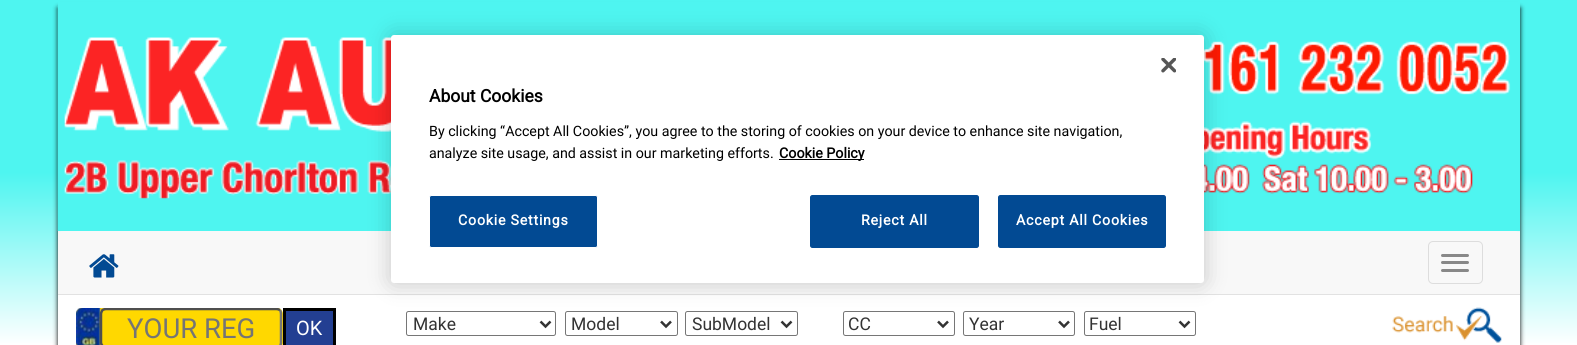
#include <cairo/cairo.h>
#include <math.h>
#include <stddef.h>


static void draw_spaced(cairo_t *cr, double x, double y, const char *s, double letter, double word) {
  cairo_move_to(cr, x, y);
  while (*s) {
    char ch[5] = {0};
    int n = 0;
    do ch[n++] = *s++; while ((*s & 0xC0) == 0x80);
    cairo_show_text(cr, ch);
    cairo_rel_move_to(cr, letter + word * (*ch == ' '), 0);
  }
}

static void rounded_rect(cairo_t *cr, double x, double y, double w, double h, double r) {
  cairo_new_sub_path(cr);
  cairo_arc(cr, x + w - r, y + h - r, r, 0, M_PI / 2);
  cairo_arc(cr, x + r, y + h - r, r, M_PI / 2, M_PI);
  cairo_arc(cr, x + r, y + r, r, M_PI, 1.5 * M_PI);
  cairo_arc(cr, x + w - r, y + r, r, 1.5 * M_PI, 2 * M_PI);
  cairo_close_path(cr);
}

static void draw_shadow(cairo_t *cr, double x, double y, double w, double h, double r, double blur, double alpha) {
  cairo_push_group_with_content(cr, CAIRO_CONTENT_ALPHA);
  cairo_set_operator(cr, CAIRO_OPERATOR_SOURCE);
  for (int i = 15; i >= -15 && fmin(w, h) + blur * i / 3 > 0; i -= 2) {
    double e = blur * i / 6;
    cairo_set_source_rgba(cr, 0, 0, 0, alpha * erfc((i - 1) / 8.5) / 2);
    rounded_rect(cr, x - e, y - e, w + 2 * e, h + 2 * e, fmax(0, fmin(r + e + blur * .6, fmin(w, h) / 2 + e)));
    cairo_fill(cr);
  }
  cairo_pattern_t *soft = cairo_pop_group(cr);
  cairo_mask(cr, soft);
  cairo_pattern_destroy(soft);
}

static void draw_image(cairo_t *cr, const char *path, double x, double y, double w, double h) {
  cairo_surface_t *image = cairo_image_surface_create_from_png(path);
  cairo_save(cr);
  cairo_set_source_surface(cr, image, x, y);
  cairo_rectangle(cr, x, y, w, h);
  cairo_fill(cr);
  cairo_restore(cr);
  cairo_surface_destroy(image);
}

static void draw(cairo_t *cr) {
  cairo_pattern_t *gradient;
  cairo_set_source_rgb(cr, 1, 1, 1);
  cairo_paint(cr);
  gradient = cairo_pattern_create_linear(0, 173, 0, 345);
  cairo_pattern_add_color_stop_rgba(gradient, 0, 78 / 255.0, 245 / 255.0, 240 / 255.0, 1);
  cairo_pattern_add_color_stop_rgba(gradient, 1, 1, 1, 1, 1);
  cairo_set_source(cr, gradient);
  cairo_pattern_destroy(gradient);
  cairo_rectangle(cr, 0, 0, 1577, 343);
  cairo_fill(cr);
  cairo_set_source_rgb(cr, 0, 0, 0);
  draw_shadow(cr, 58, 8, 1462, 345, 0, 2.5, 1);
  cairo_set_source_rgb(cr, 78 / 255.0, 245 / 255.0, 240 / 255.0);
  cairo_rectangle(cr, 58, 2, 1462, 4);
  cairo_fill(cr);
  cairo_set_source_rgb(cr, 248 / 255.0, 248 / 255.0, 248 / 255.0);
  cairo_rectangle(cr, 58, 231, 1462, 63);
  cairo_fill(cr);
  draw_image(cr, "images/2.png", 57, 6, 1463, 226);
  cairo_set_source_rgb(cr, 226 / 255.0, 226 / 255.0, 226 / 255.0);
  cairo_rectangle(cr, 58, 294, 1462, 1);
  cairo_fill(cr);
  cairo_set_source_rgb(cr, 248 / 255.0, 248 / 255.0, 248 / 255.0);
  rounded_rect(cr, 58, 231, 1462, 63, 5);
  cairo_fill(cr);
  cairo_set_source_rgb(cr, 1, 1, 1);
  cairo_rectangle(cr, 58, 295, 1462, 50);
  cairo_fill(cr);
  rounded_rect(cr, 406.5, 311.5, 149, 24, 2);
  cairo_set_source_rgb(cr, 118 / 255.0, 118 / 255.0, 118 / 255.0);
  cairo_set_line_width(cr, 1);
  cairo_stroke(cr);
  rounded_rect(cr, 565.5, 311.5, 112, 24, 2);
  cairo_stroke(cr);
  rounded_rect(cr, 685.5, 311.5, 112, 24, 2);
  cairo_stroke(cr);
  rounded_rect(cr, 843.5, 311.5, 111, 24, 2);
  cairo_stroke(cr);
  rounded_rect(cr, 963.5, 311.5, 111, 24, 2);
  cairo_stroke(cr);
  rounded_rect(cr, 1084.5, 311.5, 111, 24, 2);
  cairo_stroke(cr);
  cairo_set_source_rgb(cr, 0, 0, 0);
  draw_shadow(cr, 391, 35, 813, 248, 3, 11, 0.2);
  cairo_set_source_rgb(cr, 1, 1, 1);
  rounded_rect(cr, 391, 35, 813, 248, 3);
  cairo_fill(cr);
  draw_image(cr, "images/1.png", 1161, 58, 15, 15);
  cairo_set_source_rgb(cr, 0, 0, 0);
  cairo_rectangle(cr, 779, 159, 85, 1);
  cairo_fill(cr);
  cairo_set_source_rgb(cr, 2 / 255.0, 74 / 255.0, 147 / 255.0);
  rounded_rect(cr, 429.5, 195.5, 168, 52, 2);
  cairo_fill_preserve(cr);
  cairo_set_source_rgb(cr, 1, 1, 1);
  cairo_stroke(cr);
  cairo_set_source_rgb(cr, 2 / 255.0, 74 / 255.0, 147 / 255.0);
  rounded_rect(cr, 810.5, 195.5, 168, 52, 2);
  cairo_fill_preserve(cr);
  cairo_stroke(cr);
  rounded_rect(cr, 998.5, 195.5, 167, 52, 2);
  cairo_fill_preserve(cr);
  cairo_stroke(cr);
  draw_image(cr, "images/3.png", 89, 254, 30, 24);
  rounded_rect(cr, 1428.5, 241.5, 54, 42, 4.5);
  cairo_set_source_rgb(cr, 221 / 255.0, 221 / 255.0, 221 / 255.0);
  cairo_stroke(cr);
  cairo_set_source_rgb(cr, 136 / 255.0, 136 / 255.0, 136 / 255.0);
  rounded_rect(cr, 1441, 254, 28, 3, 1.5);
  cairo_fill(cr);
  rounded_rect(cr, 1441, 261, 28, 3, 1.5);
  cairo_fill(cr);
  rounded_rect(cr, 1441, 269, 28, 3, 1.5);
  cairo_fill(cr);
  cairo_set_source_rgb(cr, 1, 216 / 255.0, 0);
  rounded_rect(cr, 76, 308, 207, 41, 6);
  cairo_fill(cr);
  draw_image(cr, "images/4.png", 76, 308, 25, 37);
  cairo_new_path(cr);
  cairo_move_to(cr, 280, 310);
  cairo_curve_to(cr, 280.5, 311, 281, 312.5, 281, 314);
  cairo_line_to(cr, 281, 342.5);
  cairo_curve_to(cr, 281, 344, 280.5, 345, 280, 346);
  cairo_curve_to(cr, 279, 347, 277.5, 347.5, 276, 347.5);
  cairo_line_to(cr, 106, 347.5);
  cairo_curve_to(cr, 105, 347.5, 103.5, 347, 102.5, 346);
  cairo_set_source_rgb(cr, 118 / 255.0, 118 / 255.0, 118 / 255.0);
  cairo_set_line_width(cr, 2.5);
  cairo_stroke(cr);
  cairo_save(cr);
  cairo_rectangle(cr, 76, 308, 327, 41);
  cairo_clip(cr);
  cairo_new_path(cr);
  cairo_move_to(cr, 102.5, 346);
  cairo_curve_to(cr, 102, 345, 101, 344, 101, 342.5);
  cairo_line_to(cr, 101, 314);
  cairo_curve_to(cr, 101, 312.5, 102, 311, 102.5, 310);
  cairo_curve_to(cr, 103.5, 309.5, 105, 309, 106, 309);
  cairo_line_to(cr, 276, 309);
  cairo_curve_to(cr, 277.5, 309, 279, 309.5, 280, 310);
  cairo_set_source_rgb(cr, 79 / 255.0, 79 / 255.0, 79 / 255.0);
  cairo_stroke(cr);
  cairo_restore(cr);
  cairo_set_source_rgb(cr, 35 / 255.0, 63 / 255.0, 146 / 255.0);
  cairo_rectangle(cr, 284.5, 309.5, 50, 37);
  cairo_fill_preserve(cr);
  cairo_set_source_rgb(cr, 0, 0, 0);
  cairo_set_line_width(cr, 3);
  cairo_stroke(cr);
  cairo_new_path(cr);
  cairo_move_to(cr, 540.5, 321.5);
  cairo_line_to(cr, 545.5, 326.5);
  cairo_line_to(cr, 550.5, 321.5);
  cairo_set_source_rgb(cr, 51 / 255.0, 51 / 255.0, 51 / 255.0);
  cairo_set_line_width(cr, 2.5);
  cairo_stroke(cr);
  cairo_new_path(cr);
  cairo_move_to(cr, 661, 321.5);
  cairo_line_to(cr, 666, 326.5);
  cairo_line_to(cr, 671, 321.5);
  cairo_stroke(cr);
  cairo_new_path(cr);
  cairo_move_to(cr, 781.5, 321.5);
  cairo_line_to(cr, 786.5, 326.5);
  cairo_line_to(cr, 791.5, 321.5);
  cairo_stroke(cr);
  cairo_new_path(cr);
  cairo_move_to(cr, 938, 321.5);
  cairo_line_to(cr, 943, 326.5);
  cairo_line_to(cr, 948, 321.5);
  cairo_stroke(cr);
  cairo_new_path(cr);
  cairo_move_to(cr, 1059, 321.5);
  cairo_line_to(cr, 1064, 326.5);
  cairo_line_to(cr, 1069, 321.5);
  cairo_stroke(cr);
  cairo_new_path(cr);
  cairo_move_to(cr, 1179.5, 321.5);
  cairo_line_to(cr, 1184.5, 326.5);
  cairo_line_to(cr, 1189.5, 321.5);
  cairo_stroke(cr);
  draw_image(cr, "images/5.png", 1392, 307, 110, 36);
  cairo_select_font_face(cr, "Roboto", CAIRO_FONT_SLANT_NORMAL, CAIRO_FONT_WEIGHT_BOLD);
  cairo_set_font_size(cr, 17.5);
  cairo_set_source_rgb(cr, 0, 0, 0);
  cairo_move_to(cr, 429, 102);
  cairo_show_text(cr, "About Cookies");
  cairo_select_font_face(cr, "Roboto", CAIRO_FONT_SLANT_NORMAL, CAIRO_FONT_WEIGHT_NORMAL);
  cairo_set_font_size(cr, 14.25);
  cairo_move_to(cr, 429, 136);
  cairo_show_text(cr, "By clicking “Accept All Cookies”, you agree to the storing of cookies on your device to enhance site navigation,");
  cairo_move_to(cr, 429, 158);
  cairo_show_text(cr, "analyze site usage, and assist in our marketing efforts.");
  cairo_select_font_face(cr, "Roboto", CAIRO_FONT_SLANT_NORMAL, CAIRO_FONT_WEIGHT_BOLD);
  cairo_move_to(cr, 779, 158);
  cairo_show_text(cr, "Cookie Policy");
  cairo_set_source_rgb(cr, 1, 1, 1);
  draw_spaced(cr, 458, 225, "Cookie Settings", 0.75, 0);
  draw_spaced(cr, 861, 225, "Reject All", 0.75, 0);
  draw_spaced(cr, 1016, 225, "Accept All Cookies", 0.75, 0);
  cairo_select_font_face(cr, "Roboto", CAIRO_FONT_SLANT_NORMAL, CAIRO_FONT_WEIGHT_NORMAL);
  cairo_set_font_size(cr, 27.5);
  cairo_set_source_rgb(cr, 117 / 255.0, 117 / 255.0, 117 / 255.0);
  cairo_move_to(cr, 127, 338);
  cairo_show_text(cr, "YOUR REG");
  cairo_set_font_size(cr, 20);
  cairo_set_source_rgb(cr, 1, 1, 1);
  cairo_move_to(cr, 296, 335);
  cairo_show_text(cr, "OK");
  cairo_set_font_size(cr, 17.5);
  cairo_set_source_rgb(cr, 51 / 255.0, 51 / 255.0, 51 / 255.0);
  cairo_move_to(cr, 413, 330);
  cairo_show_text(cr, "Make");
  cairo_move_to(cr, 571, 330);
  cairo_show_text(cr, "Model");
  cairo_move_to(cr, 692, 330);
  cairo_show_text(cr, "SubModel");
  cairo_move_to(cr, 848, 330);
  cairo_show_text(cr, "CC");
  cairo_move_to(cr, 969, 330);
  cairo_show_text(cr, "Year");
  cairo_move_to(cr, 1089, 330);
  cairo_show_text(cr, "Fuel");
}

int main(void) {
  cairo_surface_t *surface = cairo_image_surface_create(CAIRO_FORMAT_RGB24, 1577, 345);
  cairo_t *cr = cairo_create(surface);
  cairo_font_options_t *options = cairo_font_options_create();
  cairo_font_options_set_hint_metrics(options, CAIRO_HINT_METRICS_OFF);
  cairo_font_options_set_hint_style(options, CAIRO_HINT_STYLE_NONE);
  cairo_set_font_options(cr, options);
  cairo_set_miter_limit(cr, 4);
  draw(cr);
  cairo_surface_write_to_png(surface, "out.png");
  cairo_font_options_destroy(options);
  cairo_destroy(cr);
  cairo_surface_destroy(surface);
  return 0;
}
